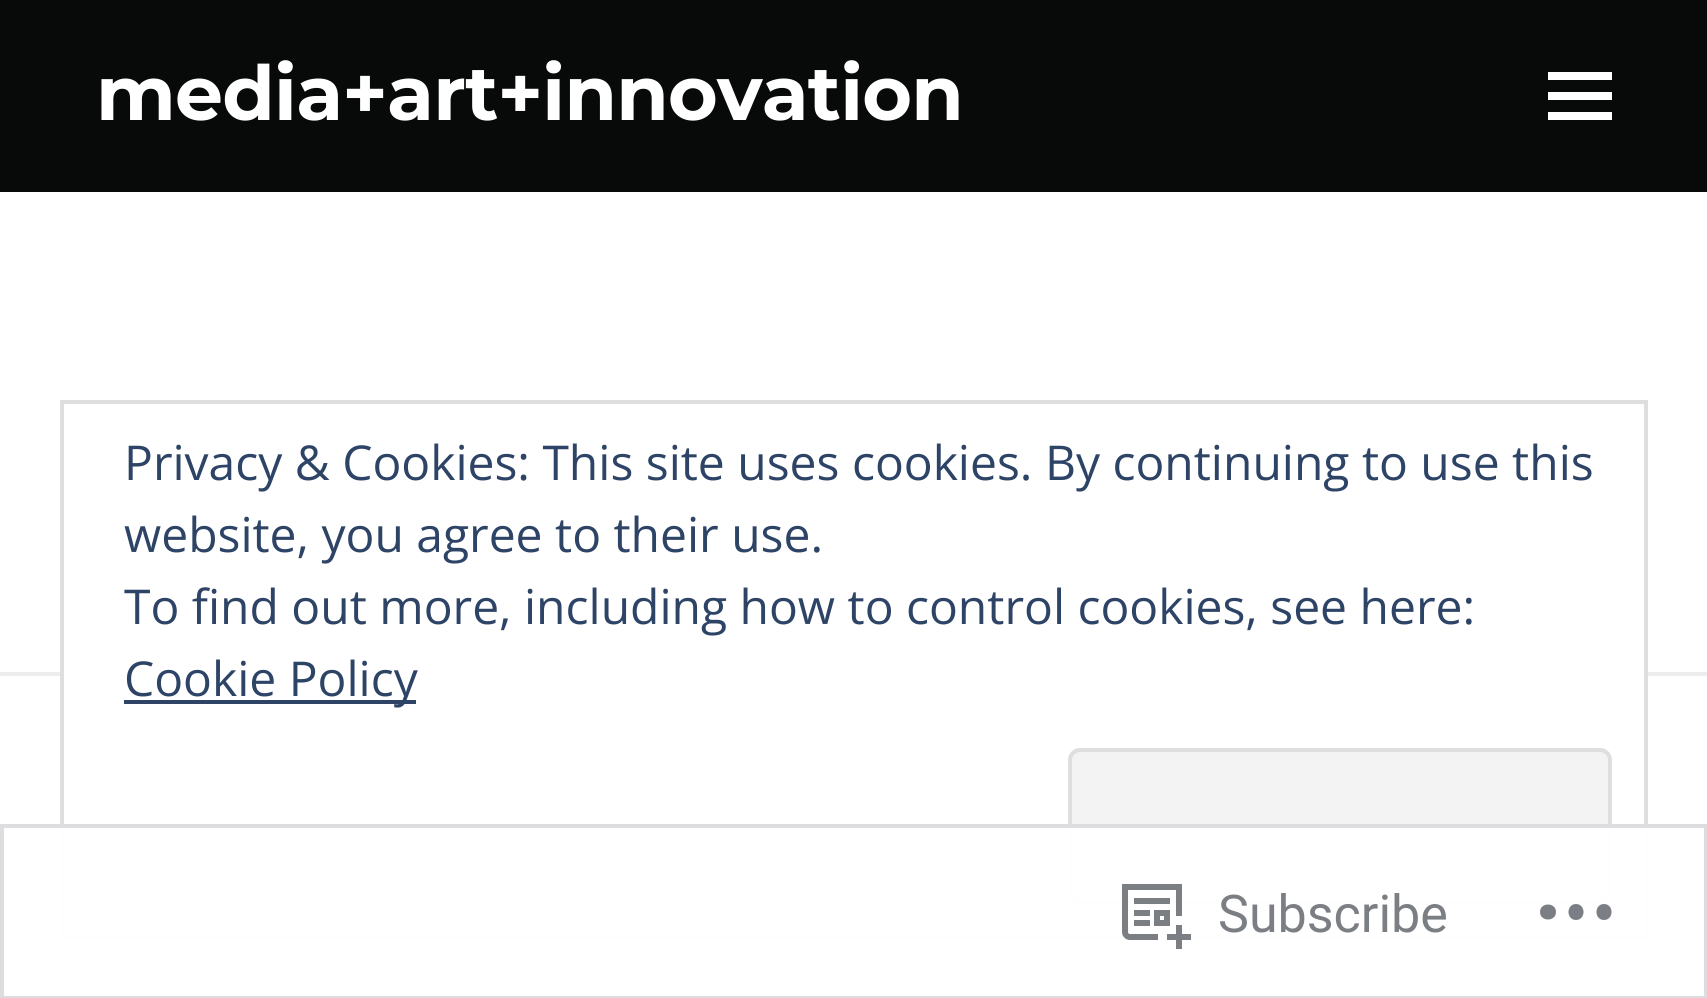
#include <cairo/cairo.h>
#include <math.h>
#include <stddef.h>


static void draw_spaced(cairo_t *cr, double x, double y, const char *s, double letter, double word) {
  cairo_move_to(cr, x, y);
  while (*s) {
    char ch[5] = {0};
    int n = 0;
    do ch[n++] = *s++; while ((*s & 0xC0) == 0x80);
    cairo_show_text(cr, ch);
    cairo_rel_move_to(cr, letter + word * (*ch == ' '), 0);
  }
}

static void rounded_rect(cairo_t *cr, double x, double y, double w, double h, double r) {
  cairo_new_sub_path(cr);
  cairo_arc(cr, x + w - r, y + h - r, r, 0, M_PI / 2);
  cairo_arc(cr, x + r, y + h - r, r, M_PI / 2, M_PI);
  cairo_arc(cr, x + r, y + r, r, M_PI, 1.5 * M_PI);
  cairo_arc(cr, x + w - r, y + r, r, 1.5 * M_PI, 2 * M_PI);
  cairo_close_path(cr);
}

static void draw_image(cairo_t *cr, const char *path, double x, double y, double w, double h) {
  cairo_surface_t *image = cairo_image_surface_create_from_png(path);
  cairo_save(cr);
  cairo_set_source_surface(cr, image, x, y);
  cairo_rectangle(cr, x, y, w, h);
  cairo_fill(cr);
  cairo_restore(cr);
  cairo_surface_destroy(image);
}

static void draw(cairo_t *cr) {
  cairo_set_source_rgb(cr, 1, 1, 1);
  cairo_paint(cr);
  cairo_set_source_rgb(cr, 8 / 255.0, 10 / 255.0, 10 / 255.0);
  cairo_rectangle(cr, 0, 0, 1707, 192);
  cairo_fill(cr);
  cairo_set_source_rgb(cr, 1, 1, 1);
  cairo_new_path(cr);
  cairo_move_to(cr, 1548, 120);
  cairo_line_to(cr, 1548, 112);
  cairo_line_to(cr, 1612, 112);
  cairo_line_to(cr, 1612, 120);
  cairo_close_path(cr);
  cairo_move_to(cr, 1548, 72);
  cairo_line_to(cr, 1612, 72);
  cairo_line_to(cr, 1612, 80);
  cairo_line_to(cr, 1548, 80);
  cairo_close_path(cr);
  cairo_move_to(cr, 1548, 100);
  cairo_line_to(cr, 1548, 92);
  cairo_line_to(cr, 1612, 92);
  cairo_line_to(cr, 1612, 100);
  cairo_close_path(cr);
  cairo_fill(cr);
  cairo_set_source_rgb(cr, 237 / 255.0, 237 / 255.0, 237 / 255.0);
  cairo_rectangle(cr, 0, 672, 1707, 4);
  cairo_fill(cr);
  cairo_set_source_rgb(cr, 1, 1, 1);
  cairo_rectangle(cr, 64, 672, 1580, 4);
  cairo_fill(cr);
  cairo_rectangle(cr, 62, 402, 1584, 536);
  cairo_set_source_rgb(cr, 222 / 255.0, 222 / 255.0, 222 / 255.0);
  cairo_set_line_width(cr, 4);
  cairo_stroke(cr);
  cairo_set_source_rgb(cr, 46 / 255.0, 68 / 255.0, 103 / 255.0);
  cairo_rectangle(cr, 124, 700, 292, 4);
  cairo_fill(cr);
  cairo_set_source_rgb(cr, 243 / 255.0, 243 / 255.0, 243 / 255.0);
  rounded_rect(cr, 1070, 750, 540, 152, 10);
  cairo_fill_preserve(cr);
  cairo_set_source_rgb(cr, 222 / 255.0, 222 / 255.0, 222 / 255.0);
  cairo_stroke(cr);
  cairo_set_source_rgba(cr, 1, 1, 1, 0.98);
  cairo_rectangle(cr, 60, 824, 1588, 116);
  cairo_fill(cr);
  cairo_rectangle(cr, 2, 826, 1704, 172);
  cairo_set_source_rgba(cr, 220 / 255.0, 220 / 255.0, 222 / 255.0, 0.98);
  cairo_stroke(cr);
  draw_image(cr, "images/1.png", 1122, 884, 69, 65);
  cairo_set_source_rgb(cr, 123 / 255.0, 127 / 255.0, 133 / 255.0);
  cairo_new_path(cr);
  cairo_move_to(cr, 1556, 912);
  cairo_curve_to(cr, 1556, 922, 1540, 922, 1540, 912);
  cairo_curve_to(cr, 1540, 902, 1556, 902, 1556, 912);
  cairo_close_path(cr);
  cairo_move_to(cr, 1604, 904);
  cairo_curve_to(cr, 1594, 904, 1594, 920, 1604, 920);
  cairo_curve_to(cr, 1614, 920, 1614, 904, 1604, 904);
  cairo_close_path(cr);
  cairo_move_to(cr, 1576, 904);
  cairo_curve_to(cr, 1566, 904, 1566, 920, 1576, 920);
  cairo_curve_to(cr, 1586, 920, 1586, 904, 1576, 904);
  cairo_close_path(cr);
  cairo_fill(cr);
  cairo_select_font_face(cr, "Montserrat", CAIRO_FONT_SLANT_NORMAL, CAIRO_FONT_WEIGHT_BOLD);
  cairo_set_font_size(cr, 76);
  cairo_set_source_rgb(cr, 1, 1, 1);
  draw_spaced(cr, 96, 120, "media+art+innovation", -0.75, 0);
  cairo_select_font_face(cr, "Open Sans", CAIRO_FONT_SLANT_NORMAL, CAIRO_FONT_WEIGHT_NORMAL);
  cairo_set_font_size(cr, 48);
  cairo_set_source_rgb(cr, 46 / 255.0, 68 / 255.0, 103 / 255.0);
  cairo_move_to(cr, 124, 480);
  cairo_show_text(cr, "Privacy & Cookies: This site uses cookies. By continuing to use this");
  cairo_move_to(cr, 124, 552);
  cairo_show_text(cr, "website, you agree to their use.");
  cairo_move_to(cr, 124, 624);
  cairo_show_text(cr, "To find out more, including how to control cookies, see here:");
  cairo_move_to(cr, 124, 696);
  cairo_show_text(cr, "Cookie Policy");
  cairo_select_font_face(cr, "Roboto", CAIRO_FONT_SLANT_NORMAL, CAIRO_FONT_WEIGHT_NORMAL);
  cairo_set_font_size(cr, 52);
  cairo_set_source_rgb(cr, 123 / 255.0, 127 / 255.0, 132 / 255.0);
  cairo_move_to(cr, 1218, 932);
  cairo_show_text(cr, "Subscribe");
}

int main(void) {
  cairo_surface_t *surface = cairo_image_surface_create(CAIRO_FORMAT_RGB24, 1707, 998);
  cairo_t *cr = cairo_create(surface);
  cairo_font_options_t *options = cairo_font_options_create();
  cairo_font_options_set_hint_metrics(options, CAIRO_HINT_METRICS_OFF);
  cairo_font_options_set_hint_style(options, CAIRO_HINT_STYLE_NONE);
  cairo_set_font_options(cr, options);
  cairo_set_miter_limit(cr, 4);
  draw(cr);
  cairo_surface_write_to_png(surface, "out.png");
  cairo_font_options_destroy(options);
  cairo_destroy(cr);
  cairo_surface_destroy(surface);
  return 0;
}
